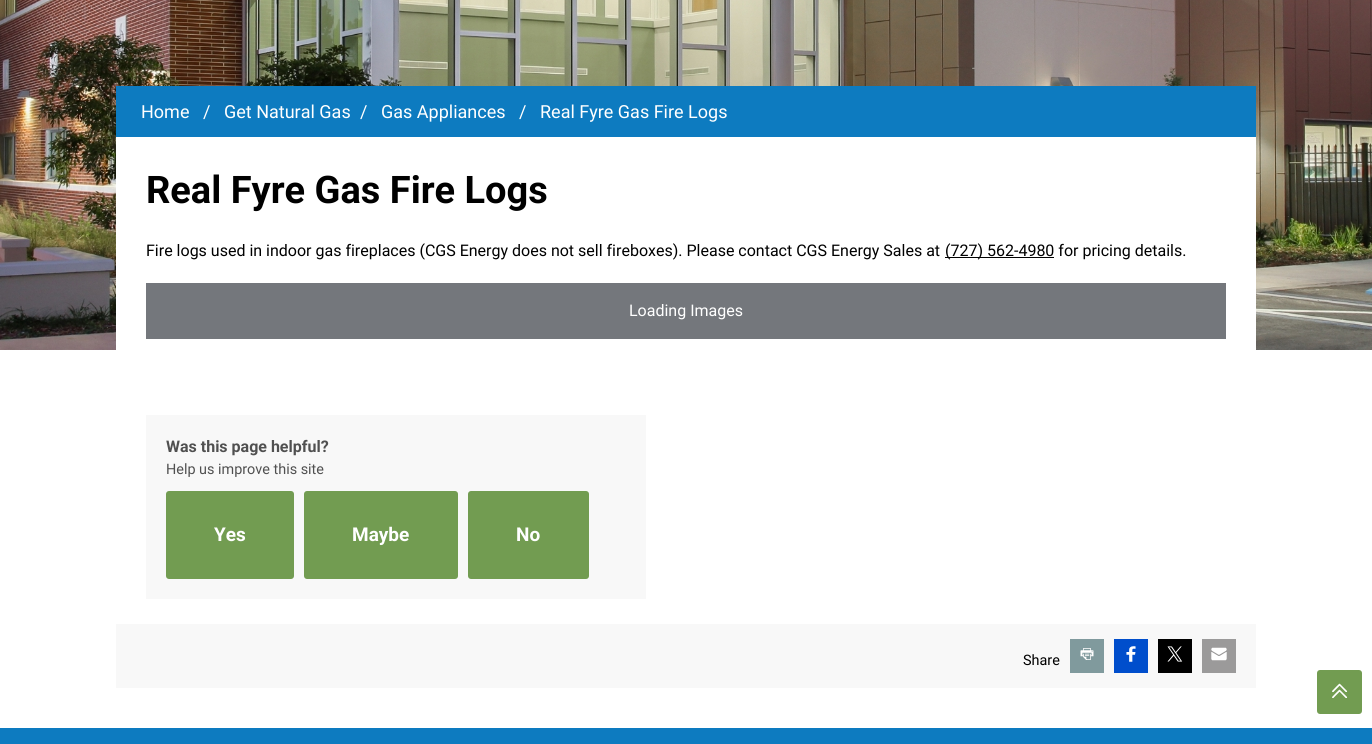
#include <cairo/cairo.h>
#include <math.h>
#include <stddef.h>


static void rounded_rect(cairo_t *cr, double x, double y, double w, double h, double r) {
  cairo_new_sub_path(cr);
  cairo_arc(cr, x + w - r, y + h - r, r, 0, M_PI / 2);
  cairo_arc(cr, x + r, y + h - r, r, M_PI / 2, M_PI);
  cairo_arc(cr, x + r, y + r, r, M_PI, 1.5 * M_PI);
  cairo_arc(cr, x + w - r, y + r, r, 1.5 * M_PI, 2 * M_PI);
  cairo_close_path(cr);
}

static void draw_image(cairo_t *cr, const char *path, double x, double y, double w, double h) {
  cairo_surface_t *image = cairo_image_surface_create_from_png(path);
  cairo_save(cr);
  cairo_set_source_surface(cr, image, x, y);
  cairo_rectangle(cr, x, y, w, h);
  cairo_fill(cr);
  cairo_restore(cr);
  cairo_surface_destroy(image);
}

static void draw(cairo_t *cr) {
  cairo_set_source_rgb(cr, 1, 1, 1);
  cairo_paint(cr);
  draw_image(cr, "images/1.png", 0, 0, 1372, 350);
  cairo_set_source_rgb(cr, 13 / 255.0, 123 / 255.0, 192 / 255.0);
  cairo_rectangle(cr, 116, 86, 1140, 51);
  cairo_fill(cr);
  cairo_set_source_rgb(cr, 1, 1, 1);
  cairo_rectangle(cr, 116, 137, 1140, 213);
  cairo_fill(cr);
  cairo_set_source_rgb(cr, 0, 0, 0);
  cairo_rectangle(cr, 945, 257, 109, 1);
  cairo_fill(cr);
  cairo_set_source_rgb(cr, 116 / 255.0, 119 / 255.0, 124 / 255.0);
  cairo_rectangle(cr, 146, 283, 1080, 56);
  cairo_fill(cr);
  cairo_set_source_rgb(cr, 248 / 255.0, 248 / 255.0, 248 / 255.0);
  cairo_rectangle(cr, 146, 415, 500, 184);
  cairo_fill(cr);
  cairo_set_source_rgb(cr, 114 / 255.0, 156 / 255.0, 81 / 255.0);
  rounded_rect(cr, 166, 491, 128, 88, 3);
  cairo_fill(cr);
  rounded_rect(cr, 304, 491, 154, 88, 3);
  cairo_fill(cr);
  rounded_rect(cr, 468, 491, 121, 88, 3);
  cairo_fill(cr);
  cairo_set_source_rgb(cr, 248 / 255.0, 248 / 255.0, 248 / 255.0);
  cairo_rectangle(cr, 116, 624, 1140, 64);
  cairo_fill(cr);
  cairo_set_source_rgb(cr, 128 / 255.0, 154 / 255.0, 157 / 255.0);
  cairo_rectangle(cr, 1070, 639, 34, 34);
  cairo_fill(cr);
  draw_image(cr, "images/2.png", 1080, 648, 14, 12);
  cairo_set_source_rgb(cr, 0, 78 / 255.0, 204 / 255.0);
  cairo_rectangle(cr, 1114, 639, 34, 34);
  cairo_fill(cr);
  draw_image(cr, "images/3.png", 1126, 646, 10, 16);
  cairo_set_source_rgb(cr, 0, 0, 0);
  cairo_rectangle(cr, 1158, 639, 34, 34);
  cairo_fill(cr);
  draw_image(cr, "images/4.png", 1167, 646, 16, 16);
  cairo_set_source_rgb(cr, 155 / 255.0, 154 / 255.0, 154 / 255.0);
  cairo_rectangle(cr, 1202, 639, 34, 34);
  cairo_fill(cr);
  draw_image(cr, "images/5.png", 1211, 647, 16, 14);
  cairo_set_source_rgb(cr, 114 / 255.0, 156 / 255.0, 81 / 255.0);
  rounded_rect(cr, 1317, 670, 45, 44, 3);
  cairo_fill(cr);
  draw_image(cr, "images/6.png", 1332, 683, 16, 15);
  cairo_set_source_rgb(cr, 13 / 255.0, 123 / 255.0, 192 / 255.0);
  cairo_rectangle(cr, 0, 728, 1372, 16);
  cairo_fill(cr);
  cairo_select_font_face(cr, "Roboto", CAIRO_FONT_SLANT_NORMAL, CAIRO_FONT_WEIGHT_NORMAL);
  cairo_set_font_size(cr, 18);
  cairo_set_source_rgb(cr, 1, 1, 1);
  cairo_move_to(cr, 141, 118);
  cairo_show_text(cr, "Home");
  cairo_move_to(cr, 203, 118);
  cairo_show_text(cr, "/");
  cairo_move_to(cr, 224, 118);
  cairo_show_text(cr, "Get Natural Gas");
  cairo_move_to(cr, 360, 118);
  cairo_show_text(cr, "/");
  cairo_move_to(cr, 381, 118);
  cairo_show_text(cr, "Gas Appliances");
  cairo_move_to(cr, 519, 118);
  cairo_show_text(cr, "/");
  cairo_move_to(cr, 540, 118);
  cairo_show_text(cr, "Real Fyre Gas Fire Logs");
  cairo_select_font_face(cr, "Roboto", CAIRO_FONT_SLANT_NORMAL, CAIRO_FONT_WEIGHT_BOLD);
  cairo_set_font_size(cr, 38);
  cairo_set_source_rgb(cr, 0, 0, 0);
  cairo_move_to(cr, 146, 203);
  cairo_show_text(cr, "Real Fyre Gas Fire Logs");
  cairo_select_font_face(cr, "Roboto", CAIRO_FONT_SLANT_NORMAL, CAIRO_FONT_WEIGHT_NORMAL);
  cairo_set_font_size(cr, 16);
  cairo_move_to(cr, 146, 256);
  cairo_show_text(cr, "Fire logs used in indoor gas fireplaces (CGS Energy does not sell fireboxes). Please contact CGS Energy Sales at");
  cairo_move_to(cr, 945, 256);
  cairo_show_text(cr, "(727) 562-4980 for pricing details.");
  cairo_set_source_rgb(cr, 1, 1, 1);
  cairo_move_to(cr, 629, 316);
  cairo_show_text(cr, "Loading Images");
  cairo_select_font_face(cr, "Roboto", CAIRO_FONT_SLANT_NORMAL, CAIRO_FONT_WEIGHT_BOLD);
  cairo_set_source_rgb(cr, 80 / 255.0, 80 / 255.0, 80 / 255.0);
  cairo_move_to(cr, 166, 452);
  cairo_show_text(cr, "Was this page helpful?");
  cairo_select_font_face(cr, "Roboto", CAIRO_FONT_SLANT_NORMAL, CAIRO_FONT_WEIGHT_NORMAL);
  cairo_set_font_size(cr, 14.4);
  cairo_move_to(cr, 166, 474);
  cairo_show_text(cr, "Help us improve this site");
  cairo_select_font_face(cr, "Roboto", CAIRO_FONT_SLANT_NORMAL, CAIRO_FONT_WEIGHT_BOLD);
  cairo_set_font_size(cr, 19);
  cairo_set_source_rgb(cr, 1, 1, 1);
  cairo_move_to(cr, 214, 541);
  cairo_show_text(cr, "Yes");
  cairo_move_to(cr, 352, 541);
  cairo_show_text(cr, "Maybe");
  cairo_move_to(cr, 516, 541);
  cairo_show_text(cr, "No");
  cairo_select_font_face(cr, "Roboto", CAIRO_FONT_SLANT_NORMAL, CAIRO_FONT_WEIGHT_NORMAL);
  cairo_set_font_size(cr, 14.4);
  cairo_set_source_rgb(cr, 0, 0, 0);
  cairo_move_to(cr, 1023, 665);
  cairo_show_text(cr, "Share");
}

int main(void) {
  cairo_surface_t *surface = cairo_image_surface_create(CAIRO_FORMAT_RGB24, 1372, 744);
  cairo_t *cr = cairo_create(surface);
  cairo_font_options_t *options = cairo_font_options_create();
  cairo_font_options_set_hint_metrics(options, CAIRO_HINT_METRICS_OFF);
  cairo_font_options_set_hint_style(options, CAIRO_HINT_STYLE_NONE);
  cairo_set_font_options(cr, options);
  cairo_set_miter_limit(cr, 4);
  draw(cr);
  cairo_surface_write_to_png(surface, "out.png");
  cairo_font_options_destroy(options);
  cairo_destroy(cr);
  cairo_surface_destroy(surface);
  return 0;
}
